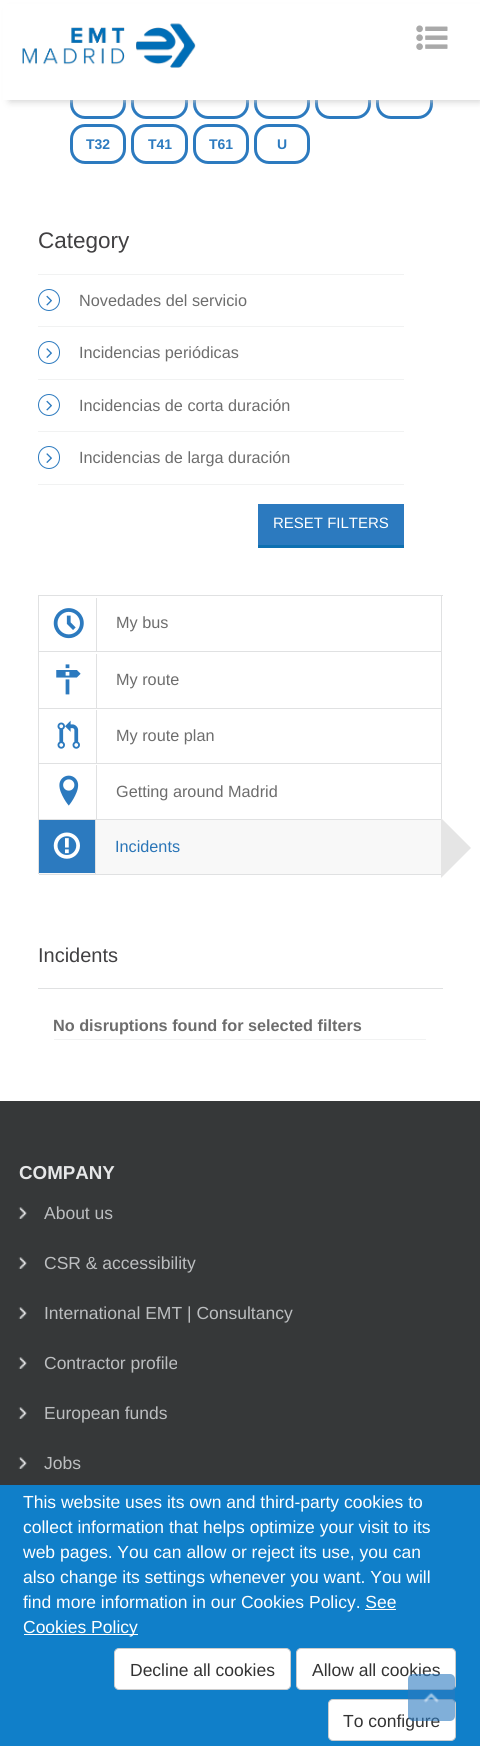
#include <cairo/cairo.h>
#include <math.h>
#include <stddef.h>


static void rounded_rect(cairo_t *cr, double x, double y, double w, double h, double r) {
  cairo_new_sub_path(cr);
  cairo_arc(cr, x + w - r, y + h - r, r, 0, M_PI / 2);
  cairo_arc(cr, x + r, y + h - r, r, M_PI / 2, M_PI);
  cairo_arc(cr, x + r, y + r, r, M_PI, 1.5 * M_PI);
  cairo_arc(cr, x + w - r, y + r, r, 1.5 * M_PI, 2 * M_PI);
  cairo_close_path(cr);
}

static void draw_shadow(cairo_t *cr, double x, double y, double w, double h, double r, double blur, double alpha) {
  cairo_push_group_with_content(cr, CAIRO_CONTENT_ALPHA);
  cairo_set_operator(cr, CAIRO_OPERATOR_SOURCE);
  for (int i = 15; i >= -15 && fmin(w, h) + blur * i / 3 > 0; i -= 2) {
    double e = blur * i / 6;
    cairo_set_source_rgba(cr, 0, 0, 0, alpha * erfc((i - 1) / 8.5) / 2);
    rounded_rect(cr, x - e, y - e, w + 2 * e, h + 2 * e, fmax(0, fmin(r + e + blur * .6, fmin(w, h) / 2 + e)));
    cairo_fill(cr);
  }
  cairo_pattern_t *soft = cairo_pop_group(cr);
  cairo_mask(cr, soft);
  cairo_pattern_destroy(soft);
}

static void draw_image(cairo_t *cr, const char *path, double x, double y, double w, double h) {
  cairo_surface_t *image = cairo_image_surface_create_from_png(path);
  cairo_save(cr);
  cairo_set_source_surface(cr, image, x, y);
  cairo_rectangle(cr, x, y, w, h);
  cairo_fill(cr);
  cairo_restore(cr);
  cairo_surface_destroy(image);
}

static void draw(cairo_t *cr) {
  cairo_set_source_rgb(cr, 1, 1, 1);
  cairo_paint(cr);
  rounded_rect(cr, 71.5, 80.5, 53, 37, 13.5);
  cairo_set_source_rgb(cr, 44 / 255.0, 122 / 255.0, 191 / 255.0);
  cairo_set_line_width(cr, 3);
  cairo_stroke(cr);
  rounded_rect(cr, 132.5, 80.5, 54, 37, 13.5);
  cairo_stroke(cr);
  rounded_rect(cr, 194.5, 80.5, 53, 37, 13.5);
  cairo_stroke(cr);
  rounded_rect(cr, 255.5, 80.5, 53, 37, 13.5);
  cairo_stroke(cr);
  rounded_rect(cr, 316.5, 80.5, 53, 37, 13.5);
  cairo_stroke(cr);
  rounded_rect(cr, 377.5, 80.5, 54, 37, 13.5);
  cairo_stroke(cr);
  cairo_set_source_rgb(cr, 204 / 255.0, 204 / 255.0, 204 / 255.0);
  draw_shadow(cr, 10, 11, 470, 90, 0, 4, 1);
  cairo_set_source_rgb(cr, 1, 1, 1);
  cairo_rectangle(cr, 3, 4, 477, 96);
  cairo_fill(cr);
  draw_image(cr, "images/1.png", 22, 23, 174, 45);
  draw_image(cr, "images/2.png", 416, 25, 32, 25);
  rounded_rect(cr, 71.5, 125.5, 53, 37, 13.5);
  cairo_set_source_rgb(cr, 44 / 255.0, 122 / 255.0, 191 / 255.0);
  cairo_stroke(cr);
  rounded_rect(cr, 132.5, 125.5, 54, 37, 13.5);
  cairo_stroke(cr);
  rounded_rect(cr, 194.5, 125.5, 53, 37, 13.5);
  cairo_stroke(cr);
  rounded_rect(cr, 255.5, 125.5, 53, 37, 13.5);
  cairo_stroke(cr);
  cairo_set_source_rgb(cr, 241 / 255.0, 242 / 255.0, 242 / 255.0);
  cairo_rectangle(cr, 38, 274, 366, 1);
  cairo_fill(cr);
  cairo_rectangle(cr, 38, 326, 366, 1);
  cairo_fill(cr);
  cairo_arc(cr, 49, 300, 10.5, 0, 2 * M_PI);
  cairo_set_source_rgb(cr, 44 / 255.0, 122 / 255.0, 191 / 255.0);
  cairo_set_line_width(cr, 1);
  cairo_stroke(cr);
  draw_image(cr, "images/3.png", 46, 295, 6, 11);
  cairo_set_source_rgb(cr, 241 / 255.0, 242 / 255.0, 242 / 255.0);
  cairo_rectangle(cr, 38, 379, 366, 1);
  cairo_fill(cr);
  rounded_rect(cr, 38.5, 341.5, 21, 22, 10.5);
  cairo_set_source_rgb(cr, 44 / 255.0, 122 / 255.0, 191 / 255.0);
  cairo_stroke(cr);
  draw_image(cr, "images/4.png", 46, 348, 6, 10);
  cairo_set_source_rgb(cr, 241 / 255.0, 242 / 255.0, 242 / 255.0);
  cairo_rectangle(cr, 38, 431, 366, 1);
  cairo_fill(cr);
  cairo_arc(cr, 49, 405, 10.5, 0, 2 * M_PI);
  cairo_set_source_rgb(cr, 44 / 255.0, 122 / 255.0, 191 / 255.0);
  cairo_stroke(cr);
  draw_image(cr, "images/3.png", 46, 400, 6, 11);
  cairo_set_source_rgb(cr, 241 / 255.0, 242 / 255.0, 242 / 255.0);
  cairo_rectangle(cr, 38, 484, 366, 1);
  cairo_fill(cr);
  rounded_rect(cr, 38.5, 446.5, 21, 22, 10.5);
  cairo_set_source_rgb(cr, 44 / 255.0, 122 / 255.0, 191 / 255.0);
  cairo_stroke(cr);
  draw_image(cr, "images/4.png", 46, 453, 6, 10);
  cairo_set_source_rgb(cr, 14 / 255.0, 112 / 255.0, 177 / 255.0);
  cairo_new_path(cr);
  cairo_move_to(cr, 258, 545);
  cairo_line_to(cr, 258, 548);
  cairo_line_to(cr, 404, 548);
  cairo_line_to(cr, 404, 506);
  cairo_line_to(cr, 404, 545);
  cairo_close_path(cr);
  cairo_fill(cr);
  cairo_set_source_rgb(cr, 44 / 255.0, 122 / 255.0, 191 / 255.0);
  cairo_rectangle(cr, 258, 504, 146, 41);
  cairo_fill(cr);
  cairo_set_source_rgb(cr, 224 / 255.0, 225 / 255.0, 226 / 255.0);
  cairo_rectangle(cr, 38, 595, 405, 1);
  cairo_fill(cr);
  cairo_rectangle(cr, 441, 595, 1, 224);
  cairo_fill(cr);
  cairo_rectangle(cr, 38, 595, 1, 279);
  cairo_fill(cr);
  draw_image(cr, "images/5.png", 53, 608, 31, 31);
  cairo_rectangle(cr, 96, 598, 1, 53);
  cairo_fill(cr);
  cairo_rectangle(cr, 39, 651, 402, 1);
  cairo_fill(cr);
  draw_image(cr, "images/6.png", 56, 664, 25, 31);
  cairo_rectangle(cr, 96, 654, 1, 54);
  cairo_fill(cr);
  cairo_rectangle(cr, 39, 708, 402, 1);
  cairo_fill(cr);
  cairo_rectangle(cr, 96, 710, 1, 53);
  cairo_fill(cr);
  draw_image(cr, "images/7.png", 57, 720, 23, 29);
  cairo_rectangle(cr, 39, 763, 402, 1);
  cairo_fill(cr);
  draw_image(cr, "images/8.png", 59, 775, 20, 31);
  cairo_rectangle(cr, 96, 765, 1, 54);
  cairo_fill(cr);
  cairo_rectangle(cr, 39, 819, 402, 1);
  cairo_fill(cr);
  cairo_rectangle(cr, 39, 874, 402, 1);
  cairo_fill(cr);
  cairo_set_source_rgb(cr, 248 / 255.0, 248 / 255.0, 248 / 255.0);
  cairo_rectangle(cr, 39, 820, 402, 54);
  cairo_fill(cr);
  cairo_set_source_rgb(cr, 44 / 255.0, 122 / 255.0, 191 / 255.0);
  cairo_rectangle(cr, 39, 820, 56, 53);
  cairo_fill(cr);
  draw_image(cr, "images/9.png", 53, 832, 27, 27);
  cairo_set_source_rgb(cr, 224 / 255.0, 225 / 255.0, 226 / 255.0);
  cairo_rectangle(cr, 95, 820, 1, 54);
  cairo_fill(cr);
  cairo_set_source_rgb(cr, 229 / 255.0, 229 / 255.0, 229 / 255.0);
  cairo_new_path(cr);
  cairo_move_to(cr, 441, 878);
  cairo_line_to(cr, 441, 818);
  cairo_line_to(cr, 471, 848);
  cairo_close_path(cr);
  cairo_fill(cr);
  cairo_set_source_rgb(cr, 224 / 255.0, 225 / 255.0, 226 / 255.0);
  cairo_rectangle(cr, 38, 988, 405, 1);
  cairo_fill(cr);
  cairo_set_source_rgb(cr, 241 / 255.0, 242 / 255.0, 242 / 255.0);
  cairo_rectangle(cr, 54, 1039, 372, 1);
  cairo_fill(cr);
  cairo_set_source_rgb(cr, 16 / 255.0, 127 / 255.0, 201 / 255.0);
  cairo_rectangle(cr, 0, 1485, 480, 261);
  cairo_fill(cr);
  cairo_set_source_rgb(cr, 1, 1, 1);
  cairo_rectangle(cr, 365, 1609, 31, 1);
  cairo_fill(cr);
  cairo_rectangle(cr, 24, 1634, 114, 1);
  cairo_fill(cr);
  rounded_rect(cr, 114.5, 1648.5, 176, 41, 4.5);
  cairo_fill_preserve(cr);
  cairo_set_source_rgb(cr, 204 / 255.0, 204 / 255.0, 204 / 255.0);
  cairo_stroke(cr);
  cairo_set_source_rgb(cr, 1, 1, 1);
  rounded_rect(cr, 296.5, 1648.5, 159, 41, 4.5);
  cairo_fill_preserve(cr);
  cairo_set_source_rgb(cr, 204 / 255.0, 204 / 255.0, 204 / 255.0);
  cairo_stroke(cr);
  cairo_set_source_rgb(cr, 1, 1, 1);
  rounded_rect(cr, 328.5, 1699.5, 127, 41, 4.5);
  cairo_fill_preserve(cr);
  cairo_set_source_rgb(cr, 204 / 255.0, 204 / 255.0, 204 / 255.0);
  cairo_stroke(cr);
  cairo_set_source_rgb(cr, 54 / 255.0, 56 / 255.0, 57 / 255.0);
  cairo_rectangle(cr, 0, 1101, 480, 384);
  cairo_fill(cr);
  draw_image(cr, "images/10.png", 18, 1207, 9, 12);
  draw_image(cr, "images/10.png", 18, 1257, 9, 12);
  draw_image(cr, "images/10.png", 18, 1307, 9, 12);
  draw_image(cr, "images/10.png", 18, 1357, 9, 12);
  draw_image(cr, "images/10.png", 18, 1407, 9, 12);
  draw_image(cr, "images/10.png", 18, 1457, 9, 12);
  cairo_select_font_face(cr, "Liberation Sans", CAIRO_FONT_SLANT_NORMAL, CAIRO_FONT_WEIGHT_BOLD);
  cairo_set_font_size(cr, 14);
  cairo_set_source_rgb(cr, 44 / 255.0, 122 / 255.0, 191 / 255.0);
  cairo_move_to(cr, 86, 149);
  cairo_show_text(cr, "T32");
  cairo_move_to(cr, 148, 149);
  cairo_show_text(cr, "T41");
  cairo_move_to(cr, 209, 149);
  cairo_show_text(cr, "T61");
  cairo_move_to(cr, 277, 149);
  cairo_show_text(cr, "U");
  cairo_select_font_face(cr, "Liberation Sans", CAIRO_FONT_SLANT_NORMAL, CAIRO_FONT_WEIGHT_NORMAL);
  cairo_set_font_size(cr, 22.5);
  cairo_set_source_rgb(cr, 65 / 255.0, 64 / 255.0, 66 / 255.0);
  cairo_move_to(cr, 38, 248);
  cairo_show_text(cr, "Category");
  cairo_set_font_size(cr, 16.25);
  cairo_set_source_rgb(cr, 109 / 255.0, 109 / 255.0, 109 / 255.0);
  cairo_move_to(cr, 79, 306);
  cairo_show_text(cr, "Novedades del servicio");
  cairo_move_to(cr, 79, 358);
  cairo_show_text(cr, "Incidencias periódicas");
  cairo_move_to(cr, 79, 411);
  cairo_show_text(cr, "Incidencias de corta duración");
  cairo_move_to(cr, 79, 463);
  cairo_show_text(cr, "Incidencias de larga duración");
  cairo_set_font_size(cr, 15);
  cairo_set_source_rgb(cr, 1, 1, 1);
  cairo_move_to(cr, 273, 528);
  cairo_show_text(cr, "RESET FILTERS");
  cairo_set_font_size(cr, 16.25);
  cairo_set_source_rgb(cr, 109 / 255.0, 109 / 255.0, 109 / 255.0);
  cairo_move_to(cr, 116, 628);
  cairo_show_text(cr, "My bus");
  cairo_move_to(cr, 116, 685);
  cairo_show_text(cr, "My route");
  cairo_move_to(cr, 116, 741);
  cairo_show_text(cr, "My route plan");
  cairo_move_to(cr, 116, 797);
  cairo_show_text(cr, "Getting around Madrid");
  cairo_set_source_rgb(cr, 42 / 255.0, 117 / 255.0, 183 / 255.0);
  cairo_move_to(cr, 115, 852);
  cairo_show_text(cr, "Incidents");
  cairo_set_font_size(cr, 20);
  cairo_set_source_rgb(cr, 65 / 255.0, 64 / 255.0, 66 / 255.0);
  cairo_move_to(cr, 38, 962);
  cairo_show_text(cr, "Incidents");
  cairo_select_font_face(cr, "Liberation Sans", CAIRO_FONT_SLANT_NORMAL, CAIRO_FONT_WEIGHT_BOLD);
  cairo_set_font_size(cr, 16.25);
  cairo_set_source_rgb(cr, 109 / 255.0, 109 / 255.0, 109 / 255.0);
  cairo_move_to(cr, 53, 1031);
  cairo_show_text(cr, "No disruptions found for selected filters");
  cairo_select_font_face(cr, "Liberation Sans", CAIRO_FONT_SLANT_NORMAL, CAIRO_FONT_WEIGHT_NORMAL);
  cairo_set_font_size(cr, 17.5);
  cairo_set_source_rgb(cr, 1, 1, 1);
  cairo_move_to(cr, 23, 1508);
  cairo_show_text(cr, "This website uses its own and third-party cookies to");
  cairo_move_to(cr, 23, 1533);
  cairo_show_text(cr, "collect information that helps optimize your visit to its");
  cairo_move_to(cr, 23, 1558);
  cairo_show_text(cr, "web pages. You can allow or reject its use, you can");
  cairo_move_to(cr, 23, 1583);
  cairo_show_text(cr, "also change its settings whenever you want. You will");
  cairo_move_to(cr, 23, 1608);
  cairo_show_text(cr, "find more information in our Cookies Policy. See");
  cairo_move_to(cr, 23, 1633);
  cairo_show_text(cr, "Cookies Policy");
  cairo_set_source_rgb(cr, 51 / 255.0, 51 / 255.0, 51 / 255.0);
  cairo_move_to(cr, 130, 1676);
  cairo_show_text(cr, "Decline all cookies");
  cairo_move_to(cr, 312, 1676);
  cairo_show_text(cr, "Allow all cookies");
  cairo_move_to(cr, 343, 1727);
  cairo_show_text(cr, "To configure");
  cairo_select_font_face(cr, "Liberation Sans", CAIRO_FONT_SLANT_NORMAL, CAIRO_FONT_WEIGHT_BOLD);
  cairo_set_font_size(cr, 18.75);
  cairo_set_source_rgb(cr, 230 / 255.0, 231 / 255.0, 232 / 255.0);
  cairo_move_to(cr, 19, 1179);
  cairo_show_text(cr, "COMPANY");
  cairo_select_font_face(cr, "Liberation Sans", CAIRO_FONT_SLANT_NORMAL, CAIRO_FONT_WEIGHT_NORMAL);
  cairo_set_font_size(cr, 17.5);
  cairo_set_source_rgb(cr, 188 / 255.0, 190 / 255.0, 192 / 255.0);
  cairo_move_to(cr, 44, 1219);
  cairo_show_text(cr, "About us");
  cairo_move_to(cr, 44, 1269);
  cairo_show_text(cr, "CSR & accessibility");
  cairo_move_to(cr, 44, 1319);
  cairo_show_text(cr, "International EMT | Consultancy");
  cairo_move_to(cr, 44, 1369);
  cairo_show_text(cr, "Contractor profile");
  cairo_move_to(cr, 44, 1419);
  cairo_show_text(cr, "European funds");
  cairo_move_to(cr, 44, 1469);
  cairo_show_text(cr, "Jobs");
  cairo_set_source_rgba(cr, 44 / 255.0, 122 / 255.0, 191 / 255.0, 0.6);
  rounded_rect(cr, 408, 1674, 47, 47, 5);
  cairo_fill(cr);
  draw_image(cr, "images/11.png", 423, 1692, 16, 11);
}

int main(void) {
  cairo_surface_t *surface = cairo_image_surface_create(CAIRO_FORMAT_RGB24, 480, 1746);
  cairo_t *cr = cairo_create(surface);
  cairo_font_options_t *options = cairo_font_options_create();
  cairo_font_options_set_hint_metrics(options, CAIRO_HINT_METRICS_OFF);
  cairo_font_options_set_hint_style(options, CAIRO_HINT_STYLE_NONE);
  cairo_set_font_options(cr, options);
  cairo_set_miter_limit(cr, 4);
  draw(cr);
  cairo_surface_write_to_png(surface, "out.png");
  cairo_font_options_destroy(options);
  cairo_destroy(cr);
  cairo_surface_destroy(surface);
  return 0;
}
